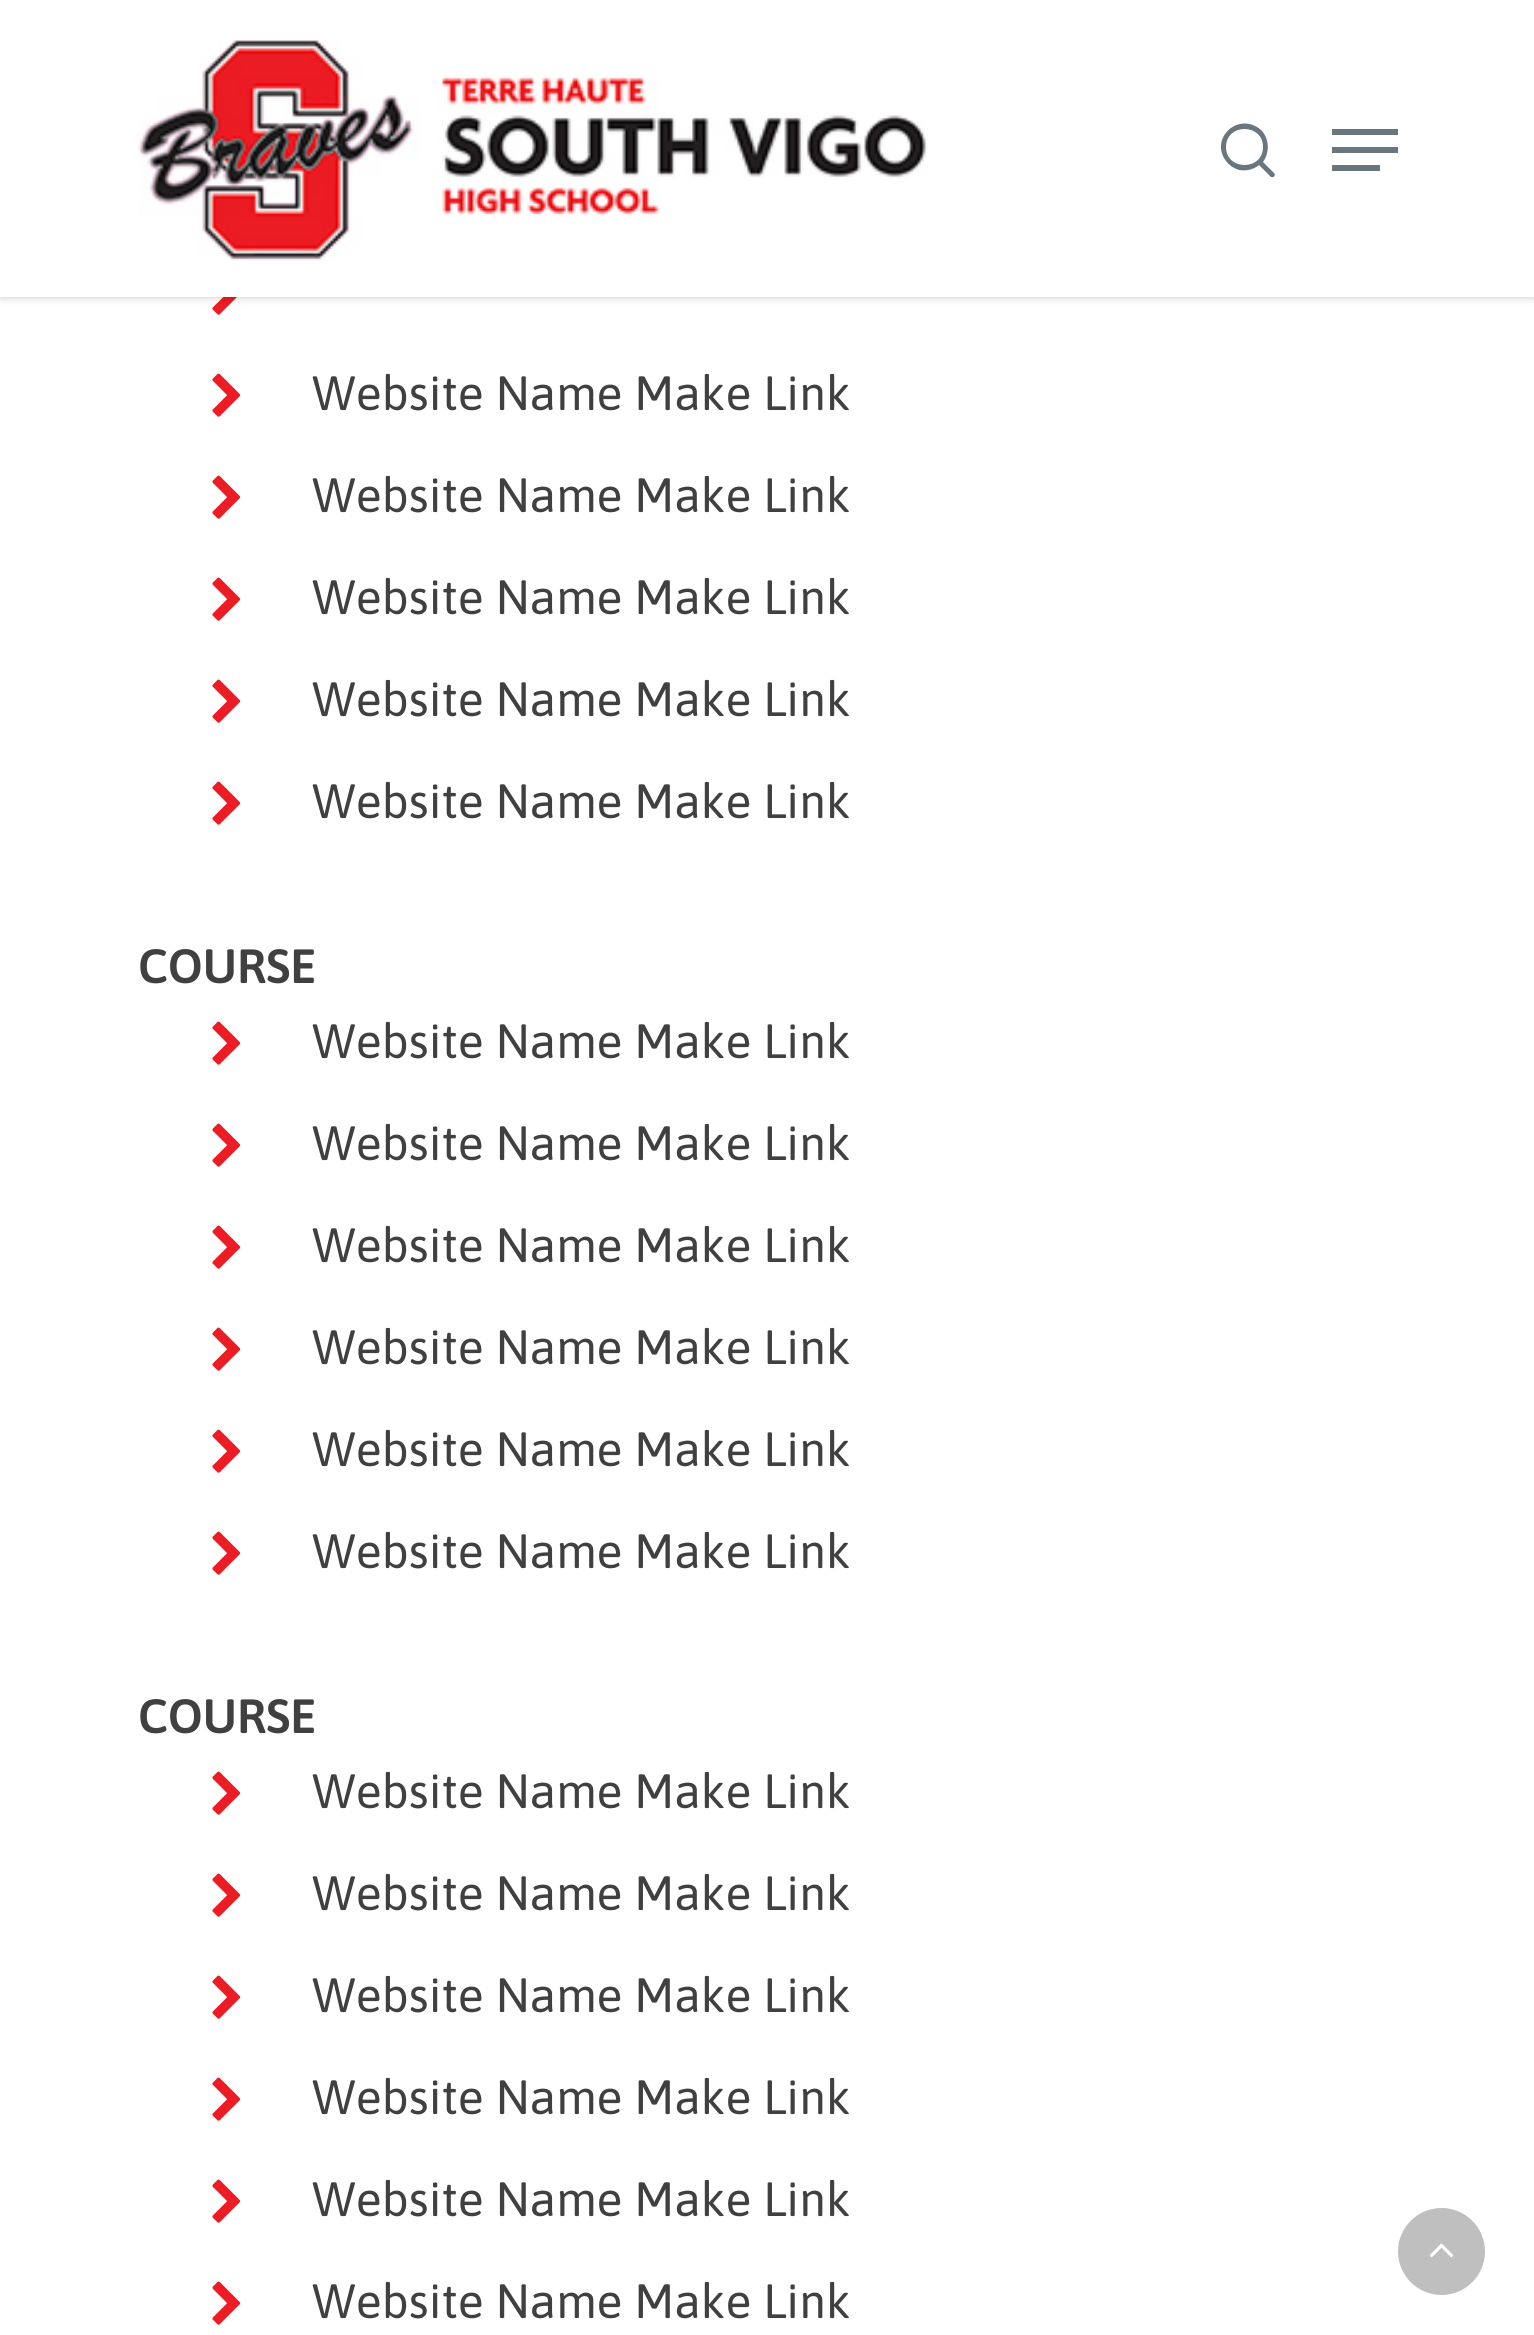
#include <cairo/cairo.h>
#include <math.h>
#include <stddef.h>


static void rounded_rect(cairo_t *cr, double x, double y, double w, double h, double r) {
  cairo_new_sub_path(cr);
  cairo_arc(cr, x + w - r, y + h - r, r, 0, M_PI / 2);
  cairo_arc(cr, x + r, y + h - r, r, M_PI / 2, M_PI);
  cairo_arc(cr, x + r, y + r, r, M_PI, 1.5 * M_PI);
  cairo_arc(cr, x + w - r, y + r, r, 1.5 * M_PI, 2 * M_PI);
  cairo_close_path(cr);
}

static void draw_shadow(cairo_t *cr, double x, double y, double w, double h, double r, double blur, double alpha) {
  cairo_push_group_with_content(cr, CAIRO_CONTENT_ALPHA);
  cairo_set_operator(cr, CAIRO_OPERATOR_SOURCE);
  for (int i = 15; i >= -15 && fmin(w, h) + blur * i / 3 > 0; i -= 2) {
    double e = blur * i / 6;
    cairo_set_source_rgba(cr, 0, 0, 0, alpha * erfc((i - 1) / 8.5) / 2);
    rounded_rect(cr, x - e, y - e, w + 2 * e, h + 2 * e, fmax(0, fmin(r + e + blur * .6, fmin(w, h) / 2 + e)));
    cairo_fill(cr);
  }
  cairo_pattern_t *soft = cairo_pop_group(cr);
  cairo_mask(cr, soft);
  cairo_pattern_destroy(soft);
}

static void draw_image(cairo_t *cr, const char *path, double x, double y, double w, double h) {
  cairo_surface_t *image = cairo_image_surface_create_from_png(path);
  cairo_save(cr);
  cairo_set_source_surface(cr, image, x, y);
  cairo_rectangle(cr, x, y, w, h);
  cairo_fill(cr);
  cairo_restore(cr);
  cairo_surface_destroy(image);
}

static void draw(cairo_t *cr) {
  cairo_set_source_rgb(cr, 1, 1, 1);
  cairo_paint(cr);
  draw_image(cr, "images/2.png", 212, 297, 25, 18);
  cairo_set_source_rgb(cr, 0, 0, 0);
  draw_shadow(cr, 0, 0, 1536, 297, 0, 4.5, 0.22);
  cairo_set_source_rgb(cr, 1, 1, 1);
  cairo_rectangle(cr, 0, 0, 1534, 297);
  cairo_fill(cr);
  draw_image(cr, "images/1.png", 138, 40, 790, 221);
  cairo_set_source_rgb(cr, 106 / 255.0, 118 / 255.0, 126 / 255.0);
  cairo_new_path(cr);
  cairo_move_to(cr, 1274, 173);
  cairo_line_to(cr, 1263, 162);
  cairo_curve_to(cr, 1271, 151, 1269, 134, 1257, 127);
  cairo_curve_to(cr, 1235, 114, 1210, 140, 1226, 161);
  cairo_curve_to(cr, 1229, 165, 1233, 168, 1239, 170);
  cairo_curve_to(cr, 1246, 171, 1253, 170, 1259, 165);
  cairo_line_to(cr, 1271, 177);
  cairo_curve_to(cr, 1274, 178, 1276, 175, 1274, 173);
  cairo_close_path(cr);
  cairo_move_to(cr, 1226, 147);
  cairo_curve_to(cr, 1226, 123, 1263, 123, 1263, 147);
  cairo_curve_to(cr, 1263, 171, 1226, 171, 1226, 147);
  cairo_close_path(cr);
  cairo_fill(cr);
  cairo_rectangle(cr, 1332, 129, 66, 6);
  cairo_fill(cr);
  cairo_rectangle(cr, 1332, 165, 48, 6);
  cairo_fill(cr);
  cairo_rectangle(cr, 1332, 147, 66, 6);
  cairo_fill(cr);
  draw_image(cr, "images/3.png", 212, 373, 29, 44);
  draw_image(cr, "images/3.png", 212, 475, 29, 44);
  draw_image(cr, "images/3.png", 212, 577, 29, 44);
  draw_image(cr, "images/3.png", 212, 679, 29, 44);
  draw_image(cr, "images/3.png", 212, 781, 29, 44);
  draw_image(cr, "images/3.png", 212, 1021, 29, 44);
  draw_image(cr, "images/3.png", 212, 1123, 29, 44);
  draw_image(cr, "images/3.png", 212, 1225, 29, 44);
  draw_image(cr, "images/3.png", 212, 1327, 29, 44);
  draw_image(cr, "images/3.png", 212, 1429, 29, 44);
  draw_image(cr, "images/3.png", 212, 1531, 29, 44);
  draw_image(cr, "images/3.png", 212, 1771, 29, 44);
  draw_image(cr, "images/3.png", 212, 1873, 29, 44);
  draw_image(cr, "images/3.png", 212, 1975, 29, 44);
  draw_image(cr, "images/3.png", 212, 2077, 29, 44);
  draw_image(cr, "images/3.png", 212, 2179, 29, 44);
  draw_image(cr, "images/3.png", 212, 2281, 29, 44);
  cairo_set_source_rgb(cr, 191 / 255.0, 191 / 255.0, 191 / 255.0);
  cairo_arc(cr, 1441.5, 2251.5, 43.5, 0, 2 * M_PI);
  cairo_fill(cr);
  draw_image(cr, "images/4.png", 1429, 2243, 25, 15);
  cairo_select_font_face(cr, "Asap", CAIRO_FONT_SLANT_NORMAL, CAIRO_FONT_WEIGHT_NORMAL);
  cairo_set_font_size(cr, 48);
  cairo_set_source_rgb(cr, 64 / 255.0, 64 / 255.0, 65 / 255.0);
  cairo_move_to(cr, 312, 410);
  cairo_show_text(cr, "Website Name Make Link");
  cairo_move_to(cr, 312, 512);
  cairo_show_text(cr, "Website Name Make Link");
  cairo_move_to(cr, 312, 614);
  cairo_show_text(cr, "Website Name Make Link");
  cairo_move_to(cr, 312, 716);
  cairo_show_text(cr, "Website Name Make Link");
  cairo_move_to(cr, 312, 818);
  cairo_show_text(cr, "Website Name Make Link");
  cairo_select_font_face(cr, "Asap SemiBold", CAIRO_FONT_SLANT_NORMAL, CAIRO_FONT_WEIGHT_NORMAL);
  cairo_move_to(cr, 138, 983);
  cairo_show_text(cr, "COURSE");
  cairo_select_font_face(cr, "Asap", CAIRO_FONT_SLANT_NORMAL, CAIRO_FONT_WEIGHT_NORMAL);
  cairo_move_to(cr, 312, 1058);
  cairo_show_text(cr, "Website Name Make Link");
  cairo_move_to(cr, 312, 1160);
  cairo_show_text(cr, "Website Name Make Link");
  cairo_move_to(cr, 312, 1262);
  cairo_show_text(cr, "Website Name Make Link");
  cairo_move_to(cr, 312, 1364);
  cairo_show_text(cr, "Website Name Make Link");
  cairo_move_to(cr, 312, 1466);
  cairo_show_text(cr, "Website Name Make Link");
  cairo_move_to(cr, 312, 1568);
  cairo_show_text(cr, "Website Name Make Link");
  cairo_select_font_face(cr, "Asap SemiBold", CAIRO_FONT_SLANT_NORMAL, CAIRO_FONT_WEIGHT_NORMAL);
  cairo_move_to(cr, 138, 1733);
  cairo_show_text(cr, "COURSE");
  cairo_select_font_face(cr, "Asap", CAIRO_FONT_SLANT_NORMAL, CAIRO_FONT_WEIGHT_NORMAL);
  cairo_move_to(cr, 312, 1808);
  cairo_show_text(cr, "Website Name Make Link");
  cairo_move_to(cr, 312, 1910);
  cairo_show_text(cr, "Website Name Make Link");
  cairo_move_to(cr, 312, 2012);
  cairo_show_text(cr, "Website Name Make Link");
  cairo_move_to(cr, 312, 2114);
  cairo_show_text(cr, "Website Name Make Link");
  cairo_move_to(cr, 312, 2216);
  cairo_show_text(cr, "Website Name Make Link");
  cairo_move_to(cr, 312, 2318);
  cairo_show_text(cr, "Website Name Make Link");
}

int main(void) {
  cairo_surface_t *surface = cairo_image_surface_create(CAIRO_FORMAT_RGB24, 1534, 2335);
  cairo_t *cr = cairo_create(surface);
  cairo_font_options_t *options = cairo_font_options_create();
  cairo_font_options_set_hint_metrics(options, CAIRO_HINT_METRICS_OFF);
  cairo_font_options_set_hint_style(options, CAIRO_HINT_STYLE_NONE);
  cairo_set_font_options(cr, options);
  cairo_set_miter_limit(cr, 4);
  draw(cr);
  cairo_surface_write_to_png(surface, "out.png");
  cairo_font_options_destroy(options);
  cairo_destroy(cr);
  cairo_surface_destroy(surface);
  return 0;
}
